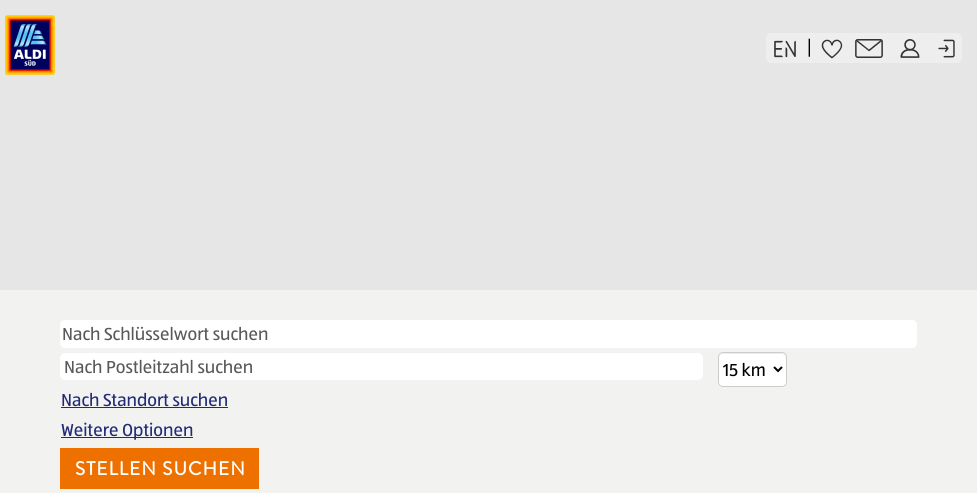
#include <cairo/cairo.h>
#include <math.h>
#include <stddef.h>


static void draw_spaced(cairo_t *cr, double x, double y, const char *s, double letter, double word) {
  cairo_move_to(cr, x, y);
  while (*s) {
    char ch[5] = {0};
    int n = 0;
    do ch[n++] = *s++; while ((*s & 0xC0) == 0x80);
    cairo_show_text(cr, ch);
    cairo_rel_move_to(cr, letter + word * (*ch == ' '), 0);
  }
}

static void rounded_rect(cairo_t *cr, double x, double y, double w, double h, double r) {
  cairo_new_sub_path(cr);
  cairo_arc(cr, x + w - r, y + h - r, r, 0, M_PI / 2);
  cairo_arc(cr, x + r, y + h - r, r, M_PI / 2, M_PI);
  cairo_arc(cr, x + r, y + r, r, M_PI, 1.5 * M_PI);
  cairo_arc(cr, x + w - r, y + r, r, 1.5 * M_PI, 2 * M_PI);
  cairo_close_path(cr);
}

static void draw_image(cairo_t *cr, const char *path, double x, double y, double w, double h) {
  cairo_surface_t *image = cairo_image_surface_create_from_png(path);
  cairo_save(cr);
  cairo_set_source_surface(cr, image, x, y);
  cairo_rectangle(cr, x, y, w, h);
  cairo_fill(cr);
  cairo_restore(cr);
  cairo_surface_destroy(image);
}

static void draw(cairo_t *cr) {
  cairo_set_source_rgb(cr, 230 / 255.0, 230 / 255.0, 230 / 255.0);
  cairo_paint(cr);
  draw_image(cr, "images/1.png", 5, 15, 50, 60);
  cairo_set_source_rgb(cr, 238 / 255.0, 238 / 255.0, 238 / 255.0);
  rounded_rect(cr, 766, 33, 196, 30, 5);
  cairo_fill(cr);
  draw_image(cr, "images/2.png", 774, 40, 22, 18);
  draw_image(cr, "images/3.png", 821, 39, 22, 20);
  draw_image(cr, "images/4.png", 855, 39, 28, 19);
  draw_image(cr, "images/5.png", 900, 39, 20, 19);
  draw_image(cr, "images/6.png", 938, 39, 17, 19);
  cairo_set_source_rgb(cr, 242 / 255.0, 242 / 255.0, 241 / 255.0);
  cairo_rectangle(cr, 0, 290, 977, 203);
  cairo_fill(cr);
  cairo_set_source_rgb(cr, 1, 1, 1);
  rounded_rect(cr, 60, 320, 857, 28, 5);
  cairo_fill(cr);
  rounded_rect(cr, 60, 353, 643, 27, 5);
  cairo_fill(cr);
  rounded_rect(cr, 718, 352, 69, 35, 5);
  cairo_fill(cr);
  cairo_set_source_rgb(cr, 236 / 255.0, 236 / 255.0, 236 / 255.0);
  cairo_new_path(cr);
  cairo_move_to(cr, 723, 354);
  cairo_line_to(cr, 782, 354);
  cairo_curve_to(cr, 784, 354, 786, 356, 786, 358);
  cairo_curve_to(cr, 786, 351, 777, 353, 772, 353);
  cairo_line_to(cr, 733, 353);
  cairo_curve_to(cr, 728, 353, 719, 351, 719, 358);
  cairo_curve_to(cr, 719, 356, 721, 354, 723, 354);
  cairo_close_path(cr);
  cairo_fill(cr);
  rounded_rect(cr, 718.5, 352.5, 68, 34, 4.5);
  cairo_set_source_rgb(cr, 204 / 255.0, 204 / 255.0, 204 / 255.0);
  cairo_set_line_width(cr, 1);
  cairo_stroke(cr);
  cairo_new_path(cr);
  cairo_move_to(cr, 774, 367);
  cairo_line_to(cr, 778, 371);
  cairo_line_to(cr, 782, 367);
  cairo_set_source_rgb(cr, 0, 0, 0);
  cairo_set_line_width(cr, 2);
  cairo_stroke(cr);
  cairo_set_source_rgb(cr, 32 / 255.0, 43 / 255.0, 119 / 255.0);
  cairo_rectangle(cr, 61, 407, 167, 1);
  cairo_fill(cr);
  cairo_rectangle(cr, 61, 437, 132, 1);
  cairo_fill(cr);
  cairo_set_source_rgb(cr, 238 / 255.0, 113 / 255.0, 0);
  cairo_rectangle(cr, 60, 448, 199, 41);
  cairo_fill(cr);
  cairo_select_font_face(cr, "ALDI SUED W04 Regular", CAIRO_FONT_SLANT_NORMAL, CAIRO_FONT_WEIGHT_NORMAL);
  cairo_set_font_size(cr, 18);
  cairo_set_source_rgb(cr, 0, 0, 0);
  cairo_move_to(cr, 807, 53);
  cairo_show_text(cr, "|");
  cairo_set_source_rgb(cr, 89 / 255.0, 89 / 255.0, 89 / 255.0);
  cairo_move_to(cr, 62, 340);
  cairo_show_text(cr, "Nach Schlüsselwort suchen");
  cairo_move_to(cr, 64, 373);
  cairo_show_text(cr, "Nach Postleitzahl suchen");
  cairo_set_source_rgb(cr, 0, 0, 0);
  cairo_move_to(cr, 723, 376);
  cairo_show_text(cr, "15 km");
  cairo_set_source_rgb(cr, 32 / 255.0, 43 / 255.0, 119 / 255.0);
  cairo_move_to(cr, 61, 406);
  cairo_show_text(cr, "Nach Standort suchen");
  cairo_move_to(cr, 61, 436);
  cairo_show_text(cr, "Weitere Optionen");
  cairo_select_font_face(cr, "Brandon Grotesque", CAIRO_FONT_SLANT_NORMAL, CAIRO_FONT_WEIGHT_BOLD);
  cairo_set_font_size(cr, 19);
  cairo_set_source_rgb(cr, 1, 1, 1);
  draw_spaced(cr, 75, 475, "STELLEN SUCHEN", 1, 0);
}

int main(void) {
  cairo_surface_t *surface = cairo_image_surface_create(CAIRO_FORMAT_RGB24, 977, 493);
  cairo_t *cr = cairo_create(surface);
  cairo_font_options_t *options = cairo_font_options_create();
  cairo_font_options_set_hint_metrics(options, CAIRO_HINT_METRICS_OFF);
  cairo_font_options_set_hint_style(options, CAIRO_HINT_STYLE_NONE);
  cairo_set_font_options(cr, options);
  cairo_set_miter_limit(cr, 4);
  draw(cr);
  cairo_surface_write_to_png(surface, "out.png");
  cairo_font_options_destroy(options);
  cairo_destroy(cr);
  cairo_surface_destroy(surface);
  return 0;
}
